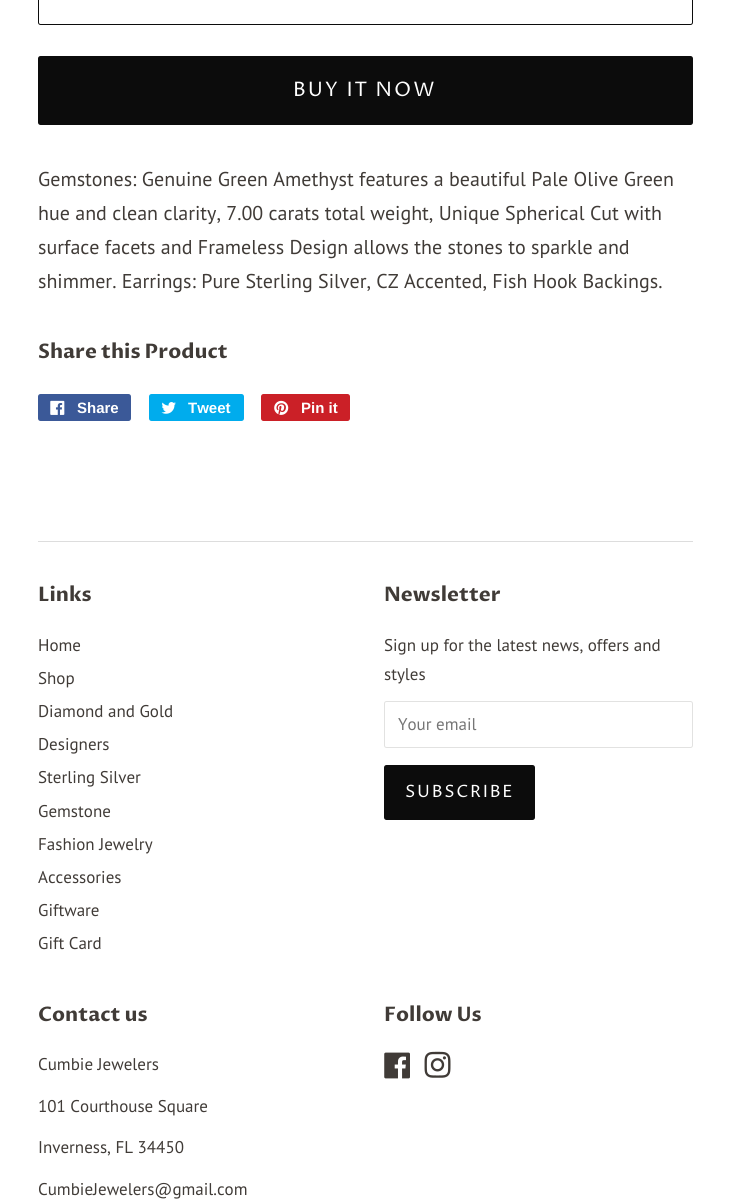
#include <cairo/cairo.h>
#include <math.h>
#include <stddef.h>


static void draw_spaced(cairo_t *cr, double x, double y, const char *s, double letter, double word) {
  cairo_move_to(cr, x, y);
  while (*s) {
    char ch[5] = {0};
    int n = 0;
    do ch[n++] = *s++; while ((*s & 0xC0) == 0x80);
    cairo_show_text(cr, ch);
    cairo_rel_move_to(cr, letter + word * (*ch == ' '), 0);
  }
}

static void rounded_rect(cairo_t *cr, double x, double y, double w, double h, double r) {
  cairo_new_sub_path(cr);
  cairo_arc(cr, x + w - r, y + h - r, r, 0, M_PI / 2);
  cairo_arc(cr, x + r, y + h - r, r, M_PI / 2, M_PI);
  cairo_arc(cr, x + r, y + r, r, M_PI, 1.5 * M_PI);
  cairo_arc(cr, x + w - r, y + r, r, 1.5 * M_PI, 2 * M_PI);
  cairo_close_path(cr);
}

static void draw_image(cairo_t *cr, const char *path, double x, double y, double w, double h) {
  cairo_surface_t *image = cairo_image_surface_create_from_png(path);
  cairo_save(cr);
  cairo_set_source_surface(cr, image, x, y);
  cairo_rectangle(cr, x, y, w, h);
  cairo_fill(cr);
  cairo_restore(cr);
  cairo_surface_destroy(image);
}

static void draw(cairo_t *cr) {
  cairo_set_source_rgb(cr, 1, 1, 1);
  cairo_paint(cr);
  rounded_rect(cr, 38.5, -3.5, 654, 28, 2);
  cairo_set_source_rgb(cr, 12 / 255.0, 12 / 255.0, 12 / 255.0);
  cairo_set_line_width(cr, 1);
  cairo_stroke(cr);
  rounded_rect(cr, 38, 56, 655, 69, 2.5);
  cairo_fill(cr);
  cairo_set_source_rgb(cr, 59 / 255.0, 89 / 255.0, 152 / 255.0);
  rounded_rect(cr, 38, 394, 93, 27, 2.5);
  cairo_fill(cr);
  draw_image(cr, "images/1.png", 50, 400, 15, 15);
  cairo_set_source_rgb(cr, 0, 172 / 255.0, 237 / 255.0);
  rounded_rect(cr, 149, 394, 95, 27, 2.5);
  cairo_fill(cr);
  draw_image(cr, "images/2.png", 161, 402, 15, 12);
  cairo_set_source_rgb(cr, 203 / 255.0, 32 / 255.0, 39 / 255.0);
  rounded_rect(cr, 261, 394, 89, 27, 2.5);
  cairo_fill(cr);
  draw_image(cr, "images/3.png", 274, 400, 15, 15);
  cairo_set_source_rgb(cr, 221 / 255.0, 221 / 255.0, 221 / 255.0);
  cairo_rectangle(cr, 38, 541, 655, 1);
  cairo_fill(cr);
  rounded_rect(cr, 384.5, 701.5, 308, 46, 2);
  cairo_set_source_rgb(cr, 226 / 255.0, 226 / 255.0, 225 / 255.0);
  cairo_stroke(cr);
  cairo_set_source_rgb(cr, 12 / 255.0, 12 / 255.0, 12 / 255.0);
  rounded_rect(cr, 384, 765, 151, 55, 2.5);
  cairo_fill(cr);
  draw_image(cr, "images/4.png", 384, 1052, 26, 27);
  draw_image(cr, "images/5.png", 424, 1051, 27, 27);
  cairo_select_font_face(cr, "Proza Libre", CAIRO_FONT_SLANT_NORMAL, CAIRO_FONT_WEIGHT_NORMAL);
  cairo_set_font_size(cr, 20);
  cairo_set_source_rgb(cr, 1, 1, 1);
  draw_spaced(cr, 293, 96, "BUY IT NOW", 2, 0);
  cairo_select_font_face(cr, "PT Sans", CAIRO_FONT_SLANT_NORMAL, CAIRO_FONT_WEIGHT_NORMAL);
  cairo_set_source_rgb(cr, 64 / 255.0, 59 / 255.0, 55 / 255.0);
  cairo_move_to(cr, 38, 186);
  cairo_show_text(cr, "Gemstones: Genuine Green Amethyst features a beautiful Pale Olive Green");
  cairo_move_to(cr, 38, 220);
  cairo_show_text(cr, "hue and clean clarity, 7.00 carats total weight, Unique Spherical Cut with");
  cairo_move_to(cr, 38, 254);
  cairo_show_text(cr, "surface facets and Frameless Design allows the stones to sparkle and");
  cairo_move_to(cr, 38, 288);
  cairo_show_text(cr, "shimmer. Earrings: Pure Sterling Silver, CZ Accented, Fish Hook Backings.");
  cairo_select_font_face(cr, "Proza Libre", CAIRO_FONT_SLANT_NORMAL, CAIRO_FONT_WEIGHT_BOLD);
  cairo_move_to(cr, 38, 358);
  cairo_show_text(cr, "Share this Product");
  cairo_select_font_face(cr, "Liberation Sans", CAIRO_FONT_SLANT_NORMAL, CAIRO_FONT_WEIGHT_BOLD);
  cairo_set_font_size(cr, 15);
  cairo_set_source_rgb(cr, 1, 1, 1);
  cairo_move_to(cr, 77, 413);
  cairo_show_text(cr, "Share");
  cairo_move_to(cr, 188, 413);
  cairo_show_text(cr, "Tweet");
  cairo_move_to(cr, 301, 413);
  cairo_show_text(cr, "Pin it");
  cairo_select_font_face(cr, "Proza Libre", CAIRO_FONT_SLANT_NORMAL, CAIRO_FONT_WEIGHT_BOLD);
  cairo_set_font_size(cr, 20);
  cairo_set_source_rgb(cr, 64 / 255.0, 59 / 255.0, 55 / 255.0);
  cairo_move_to(cr, 38, 601);
  cairo_show_text(cr, "Links");
  cairo_select_font_face(cr, "PT Sans", CAIRO_FONT_SLANT_NORMAL, CAIRO_FONT_WEIGHT_NORMAL);
  cairo_set_font_size(cr, 17);
  cairo_move_to(cr, 38, 651);
  cairo_show_text(cr, "Home");
  cairo_move_to(cr, 38, 684);
  cairo_show_text(cr, "Shop");
  cairo_move_to(cr, 38, 717);
  cairo_show_text(cr, "Diamond and Gold");
  cairo_move_to(cr, 38, 750);
  cairo_show_text(cr, "Designers");
  cairo_move_to(cr, 38, 783);
  cairo_show_text(cr, "Sterling Silver");
  cairo_move_to(cr, 38, 817);
  cairo_show_text(cr, "Gemstone");
  cairo_move_to(cr, 38, 850);
  cairo_show_text(cr, "Fashion Jewelry");
  cairo_move_to(cr, 38, 883);
  cairo_show_text(cr, "Accessories");
  cairo_move_to(cr, 38, 916);
  cairo_show_text(cr, "Giftware");
  cairo_move_to(cr, 38, 949);
  cairo_show_text(cr, "Gift Card");
  cairo_select_font_face(cr, "Proza Libre", CAIRO_FONT_SLANT_NORMAL, CAIRO_FONT_WEIGHT_BOLD);
  cairo_set_font_size(cr, 20);
  cairo_move_to(cr, 384, 601);
  cairo_show_text(cr, "Newsletter");
  cairo_select_font_face(cr, "PT Sans", CAIRO_FONT_SLANT_NORMAL, CAIRO_FONT_WEIGHT_NORMAL);
  cairo_set_font_size(cr, 17);
  cairo_move_to(cr, 384, 651);
  cairo_show_text(cr, "Sign up for the latest news, offers and");
  cairo_move_to(cr, 384, 680);
  cairo_show_text(cr, "styles");
  cairo_set_source_rgb(cr, 117 / 255.0, 117 / 255.0, 117 / 255.0);
  cairo_move_to(cr, 398, 730);
  cairo_show_text(cr, "Your email");
  cairo_select_font_face(cr, "Proza Libre", CAIRO_FONT_SLANT_NORMAL, CAIRO_FONT_WEIGHT_NORMAL);
  cairo_set_source_rgb(cr, 1, 1, 1);
  draw_spaced(cr, 405, 797, "SUBSCRIBE", 1.75, 0);
  cairo_select_font_face(cr, "Proza Libre", CAIRO_FONT_SLANT_NORMAL, CAIRO_FONT_WEIGHT_BOLD);
  cairo_set_font_size(cr, 20);
  cairo_set_source_rgb(cr, 64 / 255.0, 59 / 255.0, 55 / 255.0);
  cairo_move_to(cr, 38, 1021);
  cairo_show_text(cr, "Contact us");
  cairo_select_font_face(cr, "PT Sans", CAIRO_FONT_SLANT_NORMAL, CAIRO_FONT_WEIGHT_NORMAL);
  cairo_set_font_size(cr, 17);
  cairo_move_to(cr, 38, 1070);
  cairo_show_text(cr, "Cumbie Jewelers");
  cairo_move_to(cr, 38, 1112);
  cairo_show_text(cr, "101 Courthouse Square");
  cairo_move_to(cr, 38, 1153);
  cairo_show_text(cr, "Inverness, FL 34450");
  cairo_move_to(cr, 38, 1195);
  cairo_show_text(cr, "CumbieJewelers@gmail.com");
  cairo_select_font_face(cr, "Proza Libre", CAIRO_FONT_SLANT_NORMAL, CAIRO_FONT_WEIGHT_BOLD);
  cairo_set_font_size(cr, 20);
  cairo_move_to(cr, 384, 1021);
  cairo_show_text(cr, "Follow Us");
}

int main(void) {
  cairo_surface_t *surface = cairo_image_surface_create(CAIRO_FORMAT_RGB24, 729, 1200);
  cairo_t *cr = cairo_create(surface);
  cairo_font_options_t *options = cairo_font_options_create();
  cairo_font_options_set_hint_metrics(options, CAIRO_HINT_METRICS_OFF);
  cairo_font_options_set_hint_style(options, CAIRO_HINT_STYLE_NONE);
  cairo_set_font_options(cr, options);
  cairo_set_miter_limit(cr, 4);
  draw(cr);
  cairo_surface_write_to_png(surface, "out.png");
  cairo_font_options_destroy(options);
  cairo_destroy(cr);
  cairo_surface_destroy(surface);
  return 0;
}
